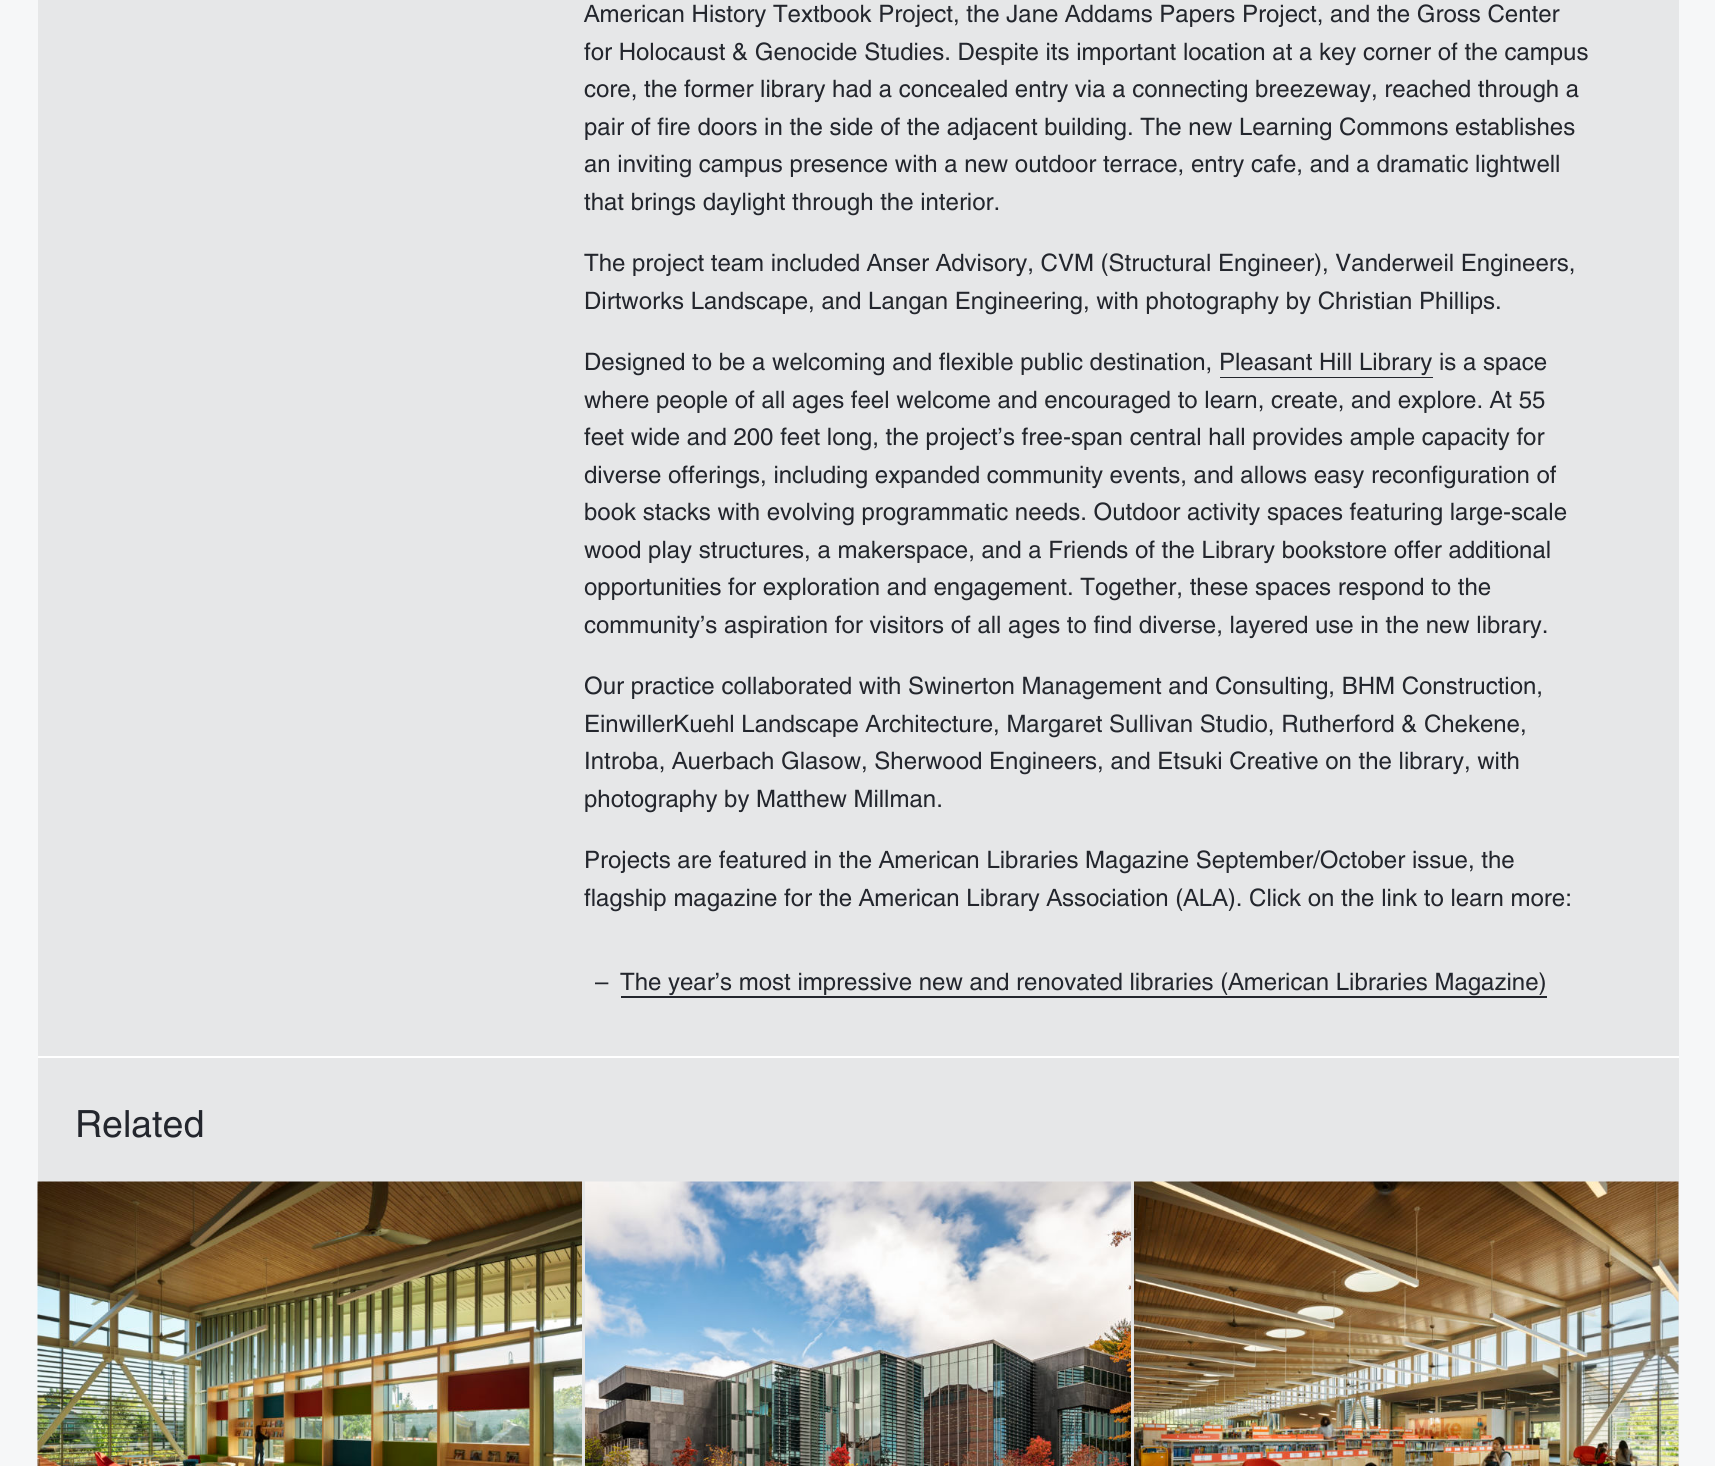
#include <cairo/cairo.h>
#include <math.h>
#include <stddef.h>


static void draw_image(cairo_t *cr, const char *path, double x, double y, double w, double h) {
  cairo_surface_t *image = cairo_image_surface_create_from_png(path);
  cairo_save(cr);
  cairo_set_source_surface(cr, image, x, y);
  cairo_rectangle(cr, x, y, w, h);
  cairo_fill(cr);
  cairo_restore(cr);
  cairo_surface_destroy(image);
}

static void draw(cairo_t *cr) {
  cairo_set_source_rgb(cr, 246 / 255.0, 247 / 255.0, 248 / 255.0);
  cairo_paint(cr);
  cairo_set_source_rgb(cr, 230 / 255.0, 231 / 255.0, 232 / 255.0);
  cairo_rectangle(cr, 38, 0, 1641, 1466);
  cairo_fill(cr);
  cairo_set_source_rgb(cr, 35 / 255.0, 38 / 255.0, 45 / 255.0);
  cairo_rectangle(cr, 1220, 377, 213, 1);
  cairo_fill(cr);
  cairo_rectangle(cr, 621, 996, 926, 2);
  cairo_fill(cr);
  cairo_set_source_rgb(cr, 1, 1, 1);
  cairo_rectangle(cr, 38, 1056, 1641, 2);
  cairo_fill(cr);
  draw_image(cr, "images/1.png", 37, 1181, 545, 285);
  draw_image(cr, "images/2.png", 585, 1181, 546, 285);
  draw_image(cr, "images/3.png", 1134, 1181, 545, 285);
  cairo_select_font_face(cr, "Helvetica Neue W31", CAIRO_FONT_SLANT_NORMAL, CAIRO_FONT_WEIGHT_NORMAL);
  cairo_set_font_size(cr, 24);
  cairo_set_source_rgb(cr, 35 / 255.0, 38 / 255.0, 45 / 255.0);
  cairo_move_to(cr, 584, 22);
  cairo_show_text(cr, "American History Textbook Project, the Jane Addams Papers Project, and the Gross Center");
  cairo_move_to(cr, 584, 60);
  cairo_show_text(cr, "for Holocaust & Genocide Studies. Despite its important location at a key corner of the campus");
  cairo_move_to(cr, 584, 97);
  cairo_show_text(cr, "core, the former library had a concealed entry via a connecting breezeway, reached through a");
  cairo_move_to(cr, 584, 135);
  cairo_show_text(cr, "pair of fire doors in the side of the adjacent building. The new Learning Commons establishes");
  cairo_move_to(cr, 584, 172);
  cairo_show_text(cr, "an inviting campus presence with a new outdoor terrace, entry cafe, and a dramatic lightwell");
  cairo_move_to(cr, 584, 210);
  cairo_show_text(cr, "that brings daylight through the interior.");
  cairo_move_to(cr, 584, 271);
  cairo_show_text(cr, "The project team included Anser Advisory, CVM (Structural Engineer), Vanderweil Engineers,");
  cairo_move_to(cr, 584, 309);
  cairo_show_text(cr, "Dirtworks Landscape, and Langan Engineering, with photography by Christian Phillips.");
  cairo_move_to(cr, 584, 370);
  cairo_show_text(cr, "Designed to be a welcoming and flexible public destination, Pleasant Hill Library is a space");
  cairo_move_to(cr, 584, 408);
  cairo_show_text(cr, "where people of all ages feel welcome and encouraged to learn, create, and explore. At 55");
  cairo_move_to(cr, 584, 445);
  cairo_show_text(cr, "feet wide and 200 feet long, the project’s free-span central hall provides ample capacity for");
  cairo_move_to(cr, 584, 483);
  cairo_show_text(cr, "diverse offerings, including expanded community events, and allows easy reconfiguration of");
  cairo_move_to(cr, 584, 520);
  cairo_show_text(cr, "book stacks with evolving programmatic needs. Outdoor activity spaces featuring large-scale");
  cairo_move_to(cr, 584, 558);
  cairo_show_text(cr, "wood play structures, a makerspace, and a Friends of the Library bookstore offer additional");
  cairo_move_to(cr, 584, 595);
  cairo_show_text(cr, "opportunities for exploration and engagement. Together, these spaces respond to the");
  cairo_move_to(cr, 584, 633);
  cairo_show_text(cr, "community’s aspiration for visitors of all ages to find diverse, layered use in the new library.");
  cairo_move_to(cr, 584, 694);
  cairo_show_text(cr, "Our practice collaborated with Swinerton Management and Consulting, BHM Construction,");
  cairo_move_to(cr, 584, 732);
  cairo_show_text(cr, "EinwillerKuehl Landscape Architecture, Margaret Sullivan Studio, Rutherford & Chekene,");
  cairo_move_to(cr, 584, 769);
  cairo_show_text(cr, "Introba, Auerbach Glasow, Sherwood Engineers, and Etsuki Creative on the library, with");
  cairo_move_to(cr, 584, 807);
  cairo_show_text(cr, "photography by Matthew Millman.");
  cairo_move_to(cr, 584, 868);
  cairo_show_text(cr, "Projects are featured in the American Libraries Magazine September/October issue, the");
  cairo_move_to(cr, 584, 906);
  cairo_show_text(cr, "flagship magazine for the American Library Association (ALA). Click on the link to learn more:");
  cairo_move_to(cr, 595, 990);
  cairo_show_text(cr, "–");
  cairo_move_to(cr, 620, 990);
  cairo_show_text(cr, "The year’s most impressive new and renovated libraries (American Libraries Magazine)");
  cairo_set_font_size(cr, 37.5);
  cairo_move_to(cr, 75, 1137);
  cairo_show_text(cr, "Related");
}

int main(void) {
  cairo_surface_t *surface = cairo_image_surface_create(CAIRO_FORMAT_RGB24, 1715, 1466);
  cairo_t *cr = cairo_create(surface);
  cairo_font_options_t *options = cairo_font_options_create();
  cairo_font_options_set_hint_metrics(options, CAIRO_HINT_METRICS_OFF);
  cairo_font_options_set_hint_style(options, CAIRO_HINT_STYLE_NONE);
  cairo_set_font_options(cr, options);
  cairo_set_miter_limit(cr, 4);
  draw(cr);
  cairo_surface_write_to_png(surface, "out.png");
  cairo_font_options_destroy(options);
  cairo_destroy(cr);
  cairo_surface_destroy(surface);
  return 0;
}
